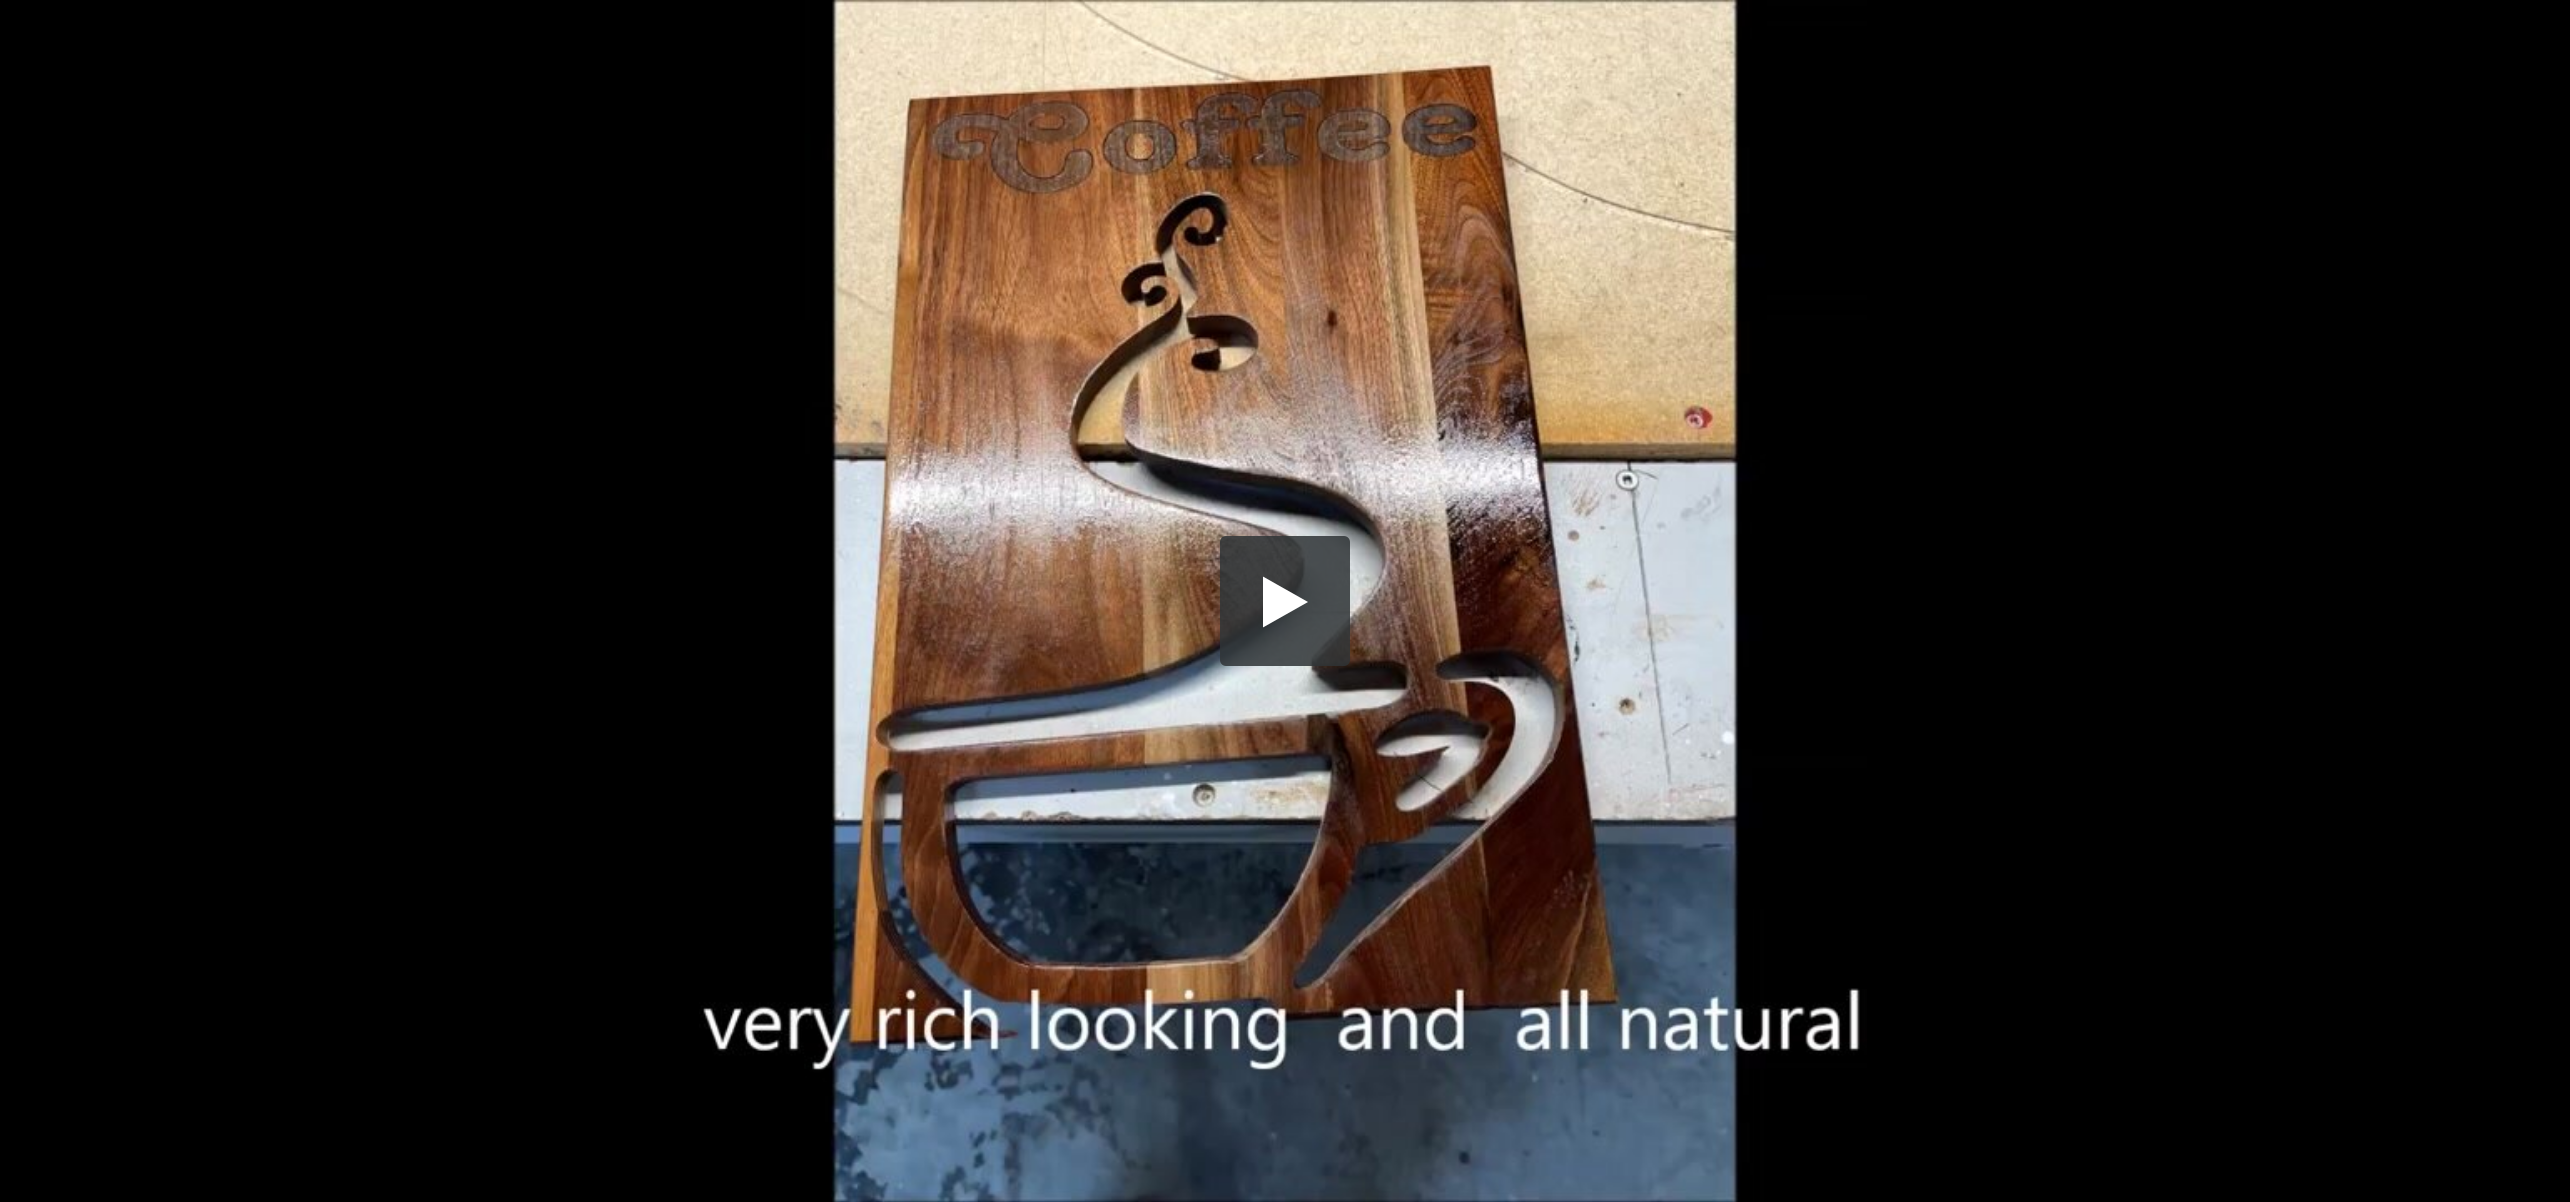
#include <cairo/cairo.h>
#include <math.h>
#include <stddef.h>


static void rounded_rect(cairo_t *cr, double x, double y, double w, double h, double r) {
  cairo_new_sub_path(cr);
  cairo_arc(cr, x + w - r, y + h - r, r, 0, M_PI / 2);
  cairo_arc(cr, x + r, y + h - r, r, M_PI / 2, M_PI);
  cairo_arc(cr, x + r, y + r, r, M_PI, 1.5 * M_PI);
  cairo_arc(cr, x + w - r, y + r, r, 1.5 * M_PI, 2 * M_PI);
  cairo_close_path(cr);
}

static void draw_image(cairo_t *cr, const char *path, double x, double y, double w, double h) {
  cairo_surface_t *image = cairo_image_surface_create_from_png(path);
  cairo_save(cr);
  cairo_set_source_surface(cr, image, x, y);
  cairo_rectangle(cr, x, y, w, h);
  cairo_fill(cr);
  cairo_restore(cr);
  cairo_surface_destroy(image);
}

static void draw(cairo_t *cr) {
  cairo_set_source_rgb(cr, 0, 0, 0);
  cairo_paint(cr);
  draw_image(cr, "images/1.png", 699, 0, 1168, 1202);
  cairo_set_source_rgba(cr, 47 / 255.0, 52 / 255.0, 55 / 255.0, 0.85);
  rounded_rect(cr, 1220, 536, 130, 130, 6);
  cairo_fill(cr);
  cairo_save(cr);
  cairo_rectangle(cr, 1263, 576, 45, 53);
  cairo_clip(cr);
  cairo_set_source_rgb(cr, 1, 1, 1);
  cairo_new_path(cr);
  cairo_move_to(cr, 1262, 576);
  cairo_line_to(cr, 1262, 628);
  cairo_line_to(cr, 1308, 602);
  cairo_close_path(cr);
  cairo_fill(cr);
  cairo_restore(cr);
}

int main(void) {
  cairo_surface_t *surface = cairo_image_surface_create(CAIRO_FORMAT_RGB24, 2570, 1202);
  cairo_t *cr = cairo_create(surface);
  cairo_font_options_t *options = cairo_font_options_create();
  cairo_font_options_set_hint_metrics(options, CAIRO_HINT_METRICS_OFF);
  cairo_font_options_set_hint_style(options, CAIRO_HINT_STYLE_NONE);
  cairo_set_font_options(cr, options);
  cairo_set_miter_limit(cr, 4);
  draw(cr);
  cairo_surface_write_to_png(surface, "out.png");
  cairo_font_options_destroy(options);
  cairo_destroy(cr);
  cairo_surface_destroy(surface);
  return 0;
}
